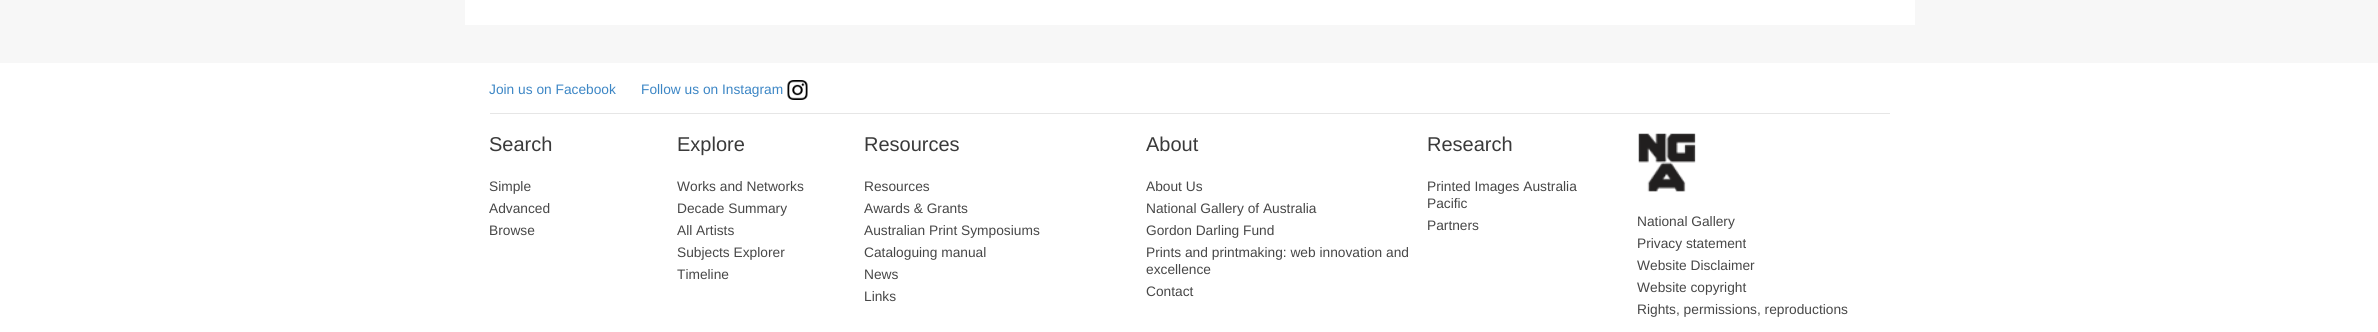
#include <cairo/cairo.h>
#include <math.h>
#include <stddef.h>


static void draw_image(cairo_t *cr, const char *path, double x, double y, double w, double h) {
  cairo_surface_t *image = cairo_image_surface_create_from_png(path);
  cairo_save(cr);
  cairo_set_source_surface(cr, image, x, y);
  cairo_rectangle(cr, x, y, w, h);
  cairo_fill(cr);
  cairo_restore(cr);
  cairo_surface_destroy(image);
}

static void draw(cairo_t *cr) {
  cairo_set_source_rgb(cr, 1, 1, 1);
  cairo_paint(cr);
  cairo_set_source_rgb(cr, 247 / 255.0, 247 / 255.0, 247 / 255.0);
  cairo_rectangle(cr, 0, 0, 2378, 63);
  cairo_fill(cr);
  cairo_set_source_rgb(cr, 1, 1, 1);
  cairo_rectangle(cr, 465, 0, 1450, 25);
  cairo_fill(cr);
  cairo_set_source_rgb(cr, 230 / 255.0, 230 / 255.0, 230 / 255.0);
  cairo_rectangle(cr, 490, 113, 1400, 1);
  cairo_fill(cr);
  draw_image(cr, "images/1.png", 787, 80, 21, 20);
  draw_image(cr, "images/2.png", 1638, 133, 58, 59);
  cairo_select_font_face(cr, "Liberation Sans", CAIRO_FONT_SLANT_NORMAL, CAIRO_FONT_WEIGHT_NORMAL);
  cairo_set_font_size(cr, 13.75);
  cairo_set_source_rgb(cr, 60 / 255.0, 134 / 255.0, 197 / 255.0);
  cairo_move_to(cr, 489, 94);
  cairo_show_text(cr, "Join us on Facebook");
  cairo_move_to(cr, 641, 94);
  cairo_show_text(cr, "Follow us on Instagram");
  cairo_set_font_size(cr, 20);
  cairo_set_source_rgb(cr, 58 / 255.0, 58 / 255.0, 58 / 255.0);
  cairo_move_to(cr, 489, 151);
  cairo_show_text(cr, "Search");
  cairo_set_font_size(cr, 13.75);
  cairo_set_source_rgb(cr, 71 / 255.0, 71 / 255.0, 71 / 255.0);
  cairo_move_to(cr, 489, 191);
  cairo_show_text(cr, "Simple");
  cairo_move_to(cr, 489, 213);
  cairo_show_text(cr, "Advanced");
  cairo_move_to(cr, 489, 235);
  cairo_show_text(cr, "Browse");
  cairo_set_font_size(cr, 20);
  cairo_set_source_rgb(cr, 58 / 255.0, 58 / 255.0, 58 / 255.0);
  cairo_move_to(cr, 677, 151);
  cairo_show_text(cr, "Explore");
  cairo_set_font_size(cr, 13.75);
  cairo_set_source_rgb(cr, 71 / 255.0, 71 / 255.0, 71 / 255.0);
  cairo_move_to(cr, 677, 191);
  cairo_show_text(cr, "Works and Networks");
  cairo_move_to(cr, 677, 213);
  cairo_show_text(cr, "Decade Summary");
  cairo_move_to(cr, 677, 235);
  cairo_show_text(cr, "All Artists");
  cairo_move_to(cr, 677, 257);
  cairo_show_text(cr, "Subjects Explorer");
  cairo_move_to(cr, 677, 279);
  cairo_show_text(cr, "Timeline");
  cairo_set_font_size(cr, 20);
  cairo_set_source_rgb(cr, 58 / 255.0, 58 / 255.0, 58 / 255.0);
  cairo_move_to(cr, 864, 151);
  cairo_show_text(cr, "Resources");
  cairo_set_font_size(cr, 13.75);
  cairo_set_source_rgb(cr, 71 / 255.0, 71 / 255.0, 71 / 255.0);
  cairo_move_to(cr, 864, 191);
  cairo_show_text(cr, "Resources");
  cairo_move_to(cr, 864, 213);
  cairo_show_text(cr, "Awards & Grants");
  cairo_move_to(cr, 864, 235);
  cairo_show_text(cr, "Australian Print Symposiums");
  cairo_move_to(cr, 864, 257);
  cairo_show_text(cr, "Cataloguing manual");
  cairo_move_to(cr, 864, 279);
  cairo_show_text(cr, "News");
  cairo_move_to(cr, 864, 301);
  cairo_show_text(cr, "Links");
  cairo_set_font_size(cr, 20);
  cairo_set_source_rgb(cr, 58 / 255.0, 58 / 255.0, 58 / 255.0);
  cairo_move_to(cr, 1146, 151);
  cairo_show_text(cr, "About");
  cairo_set_font_size(cr, 13.75);
  cairo_set_source_rgb(cr, 71 / 255.0, 71 / 255.0, 71 / 255.0);
  cairo_move_to(cr, 1146, 191);
  cairo_show_text(cr, "About Us");
  cairo_move_to(cr, 1146, 213);
  cairo_show_text(cr, "National Gallery of Australia");
  cairo_move_to(cr, 1146, 235);
  cairo_show_text(cr, "Gordon Darling Fund");
  cairo_move_to(cr, 1146, 257);
  cairo_show_text(cr, "Prints and printmaking: web innovation and");
  cairo_move_to(cr, 1146, 274);
  cairo_show_text(cr, "excellence");
  cairo_move_to(cr, 1146, 296);
  cairo_show_text(cr, "Contact");
  cairo_set_font_size(cr, 20);
  cairo_set_source_rgb(cr, 58 / 255.0, 58 / 255.0, 58 / 255.0);
  cairo_move_to(cr, 1427, 151);
  cairo_show_text(cr, "Research");
  cairo_set_font_size(cr, 13.75);
  cairo_set_source_rgb(cr, 71 / 255.0, 71 / 255.0, 71 / 255.0);
  cairo_move_to(cr, 1427, 191);
  cairo_show_text(cr, "Printed Images Australia");
  cairo_move_to(cr, 1427, 208);
  cairo_show_text(cr, "Pacific");
  cairo_move_to(cr, 1427, 230);
  cairo_show_text(cr, "Partners");
  cairo_move_to(cr, 1637, 226);
  cairo_show_text(cr, "National Gallery");
  cairo_move_to(cr, 1637, 248);
  cairo_show_text(cr, "Privacy statement");
  cairo_move_to(cr, 1637, 270);
  cairo_show_text(cr, "Website Disclaimer");
  cairo_move_to(cr, 1637, 292);
  cairo_show_text(cr, "Website copyright");
  cairo_move_to(cr, 1637, 314);
  cairo_show_text(cr, "Rights, permissions, reproductions");
}

int main(void) {
  cairo_surface_t *surface = cairo_image_surface_create(CAIRO_FORMAT_RGB24, 2378, 332);
  cairo_t *cr = cairo_create(surface);
  cairo_font_options_t *options = cairo_font_options_create();
  cairo_font_options_set_hint_metrics(options, CAIRO_HINT_METRICS_OFF);
  cairo_font_options_set_hint_style(options, CAIRO_HINT_STYLE_NONE);
  cairo_set_font_options(cr, options);
  cairo_set_miter_limit(cr, 4);
  draw(cr);
  cairo_surface_write_to_png(surface, "out.png");
  cairo_font_options_destroy(options);
  cairo_destroy(cr);
  cairo_surface_destroy(surface);
  return 0;
}
